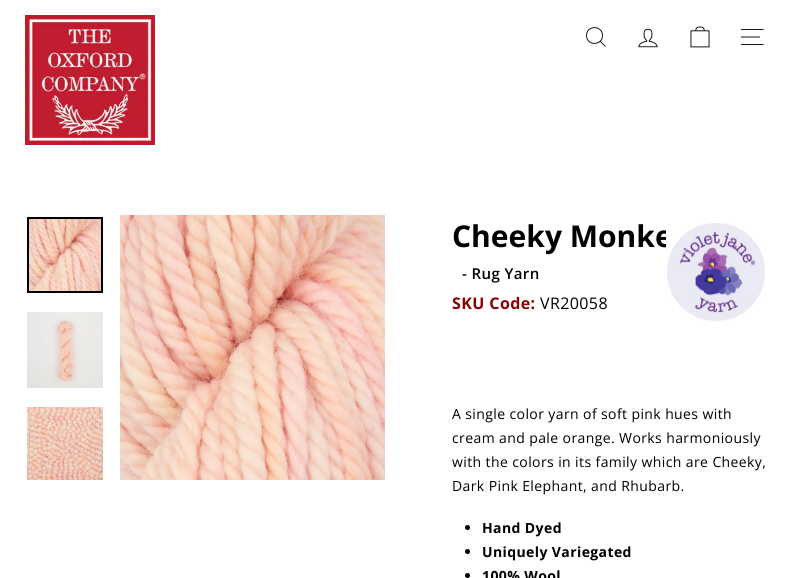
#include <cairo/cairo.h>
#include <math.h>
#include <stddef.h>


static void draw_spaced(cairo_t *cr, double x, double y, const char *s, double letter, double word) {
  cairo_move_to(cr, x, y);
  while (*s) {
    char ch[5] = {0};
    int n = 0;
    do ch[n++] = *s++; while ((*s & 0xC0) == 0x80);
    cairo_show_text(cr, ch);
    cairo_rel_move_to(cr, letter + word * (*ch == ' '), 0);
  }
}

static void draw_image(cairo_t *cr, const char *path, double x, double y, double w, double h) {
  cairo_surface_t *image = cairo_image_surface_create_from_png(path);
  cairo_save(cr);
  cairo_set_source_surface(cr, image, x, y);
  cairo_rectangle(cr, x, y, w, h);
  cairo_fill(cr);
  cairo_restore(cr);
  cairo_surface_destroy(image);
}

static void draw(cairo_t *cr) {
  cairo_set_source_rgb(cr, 1, 1, 1);
  cairo_paint(cr);
  draw_image(cr, "images/1.png", 25, 15, 130, 130);
  cairo_new_path(cr);
  cairo_move_to(cr, 602.5, 35.5);
  cairo_curve_to(cr, 602.5, 46, 586.5, 46, 586.5, 35.5);
  cairo_curve_to(cr, 586.5, 25, 602.5, 25, 602.5, 35.5);
  cairo_close_path(cr);
  cairo_move_to(cr, 605.5, 46.5);
  cairo_line_to(cr, 600.5, 41.5);
  cairo_set_source_rgb(cr, 0, 0, 0);
  cairo_set_line_width(cr, 0.9);
  cairo_stroke(cr);
  draw_image(cr, "images/2.png", 638, 28, 20, 20);
  draw_image(cr, "images/3.png", 690, 26, 20, 22);
  cairo_new_path(cr);
  cairo_move_to(cr, 741, 29.5);
  cairo_line_to(cr, 763.5, 29.5);
  cairo_move_to(cr, 741, 37);
  cairo_line_to(cr, 760, 37);
  cairo_move_to(cr, 741, 44.5);
  cairo_line_to(cr, 763.5, 44.5);
  cairo_stroke(cr);
  draw_image(cr, "images/4.png", 29, 219, 72, 72);
  cairo_rectangle(cr, 28, 218, 74, 74);
  cairo_set_line_width(cr, 2);
  cairo_stroke(cr);
  draw_image(cr, "images/5.png", 27, 312, 76, 76);
  draw_image(cr, "images/6.png", 27, 407, 76, 73);
  draw_image(cr, "images/7.png", 120, 215, 265, 265);
  cairo_arc(cr, 467.5, 527.5, 2.5, 0, 2 * M_PI);
  cairo_fill(cr);
  cairo_arc(cr, 467.5, 551.5, 2.5, 0, 2 * M_PI);
  cairo_fill(cr);
  cairo_arc(cr, 467.5, 575.5, 2.5, 0, 2 * M_PI);
  cairo_fill(cr);
  cairo_select_font_face(cr, "Open Sans", CAIRO_FONT_SLANT_NORMAL, CAIRO_FONT_WEIGHT_BOLD);
  cairo_set_font_size(cr, 30);
  cairo_move_to(cr, 452, 247);
  cairo_show_text(cr, "Cheeky Monke");
  cairo_select_font_face(cr, "Open Sans SemiBold", CAIRO_FONT_SLANT_NORMAL, CAIRO_FONT_WEIGHT_NORMAL);
  cairo_set_font_size(cr, 15);
  draw_spaced(cr, 462, 279, "- Rug Yarn", 0.4, 0);
  cairo_select_font_face(cr, "Open Sans", CAIRO_FONT_SLANT_NORMAL, CAIRO_FONT_WEIGHT_BOLD);
  cairo_set_font_size(cr, 16);
  cairo_set_source_rgb(cr, 139 / 255.0, 0, 0);
  draw_spaced(cr, 452, 309, "SKU Code:", 0.4, 0);
  cairo_select_font_face(cr, "Open Sans", CAIRO_FONT_SLANT_NORMAL, CAIRO_FONT_WEIGHT_NORMAL);
  cairo_set_source_rgb(cr, 0, 0, 0);
  draw_spaced(cr, 540, 309, "VR20058", 0.4, 0);
  draw_image(cr, "images/8.png", 666, 223, 99, 99);
  cairo_set_font_size(cr, 14);
  draw_spaced(cr, 452, 419, "A single color yarn of soft pink hues with", 0.4, 0);
  draw_spaced(cr, 452, 443, "cream and pale orange. Works harmoniously", 0.4, 0);
  draw_spaced(cr, 452, 467, "with the colors in its family which are Cheeky,", 0.4, 0);
  draw_spaced(cr, 452, 491, "Dark Pink Elephant, and Rhubarb.", 0.4, 0);
  cairo_select_font_face(cr, "Open Sans", CAIRO_FONT_SLANT_NORMAL, CAIRO_FONT_WEIGHT_BOLD);
  draw_spaced(cr, 482, 533, "Hand Dyed", 0.4, 0);
  draw_spaced(cr, 482, 557, "Uniquely Variegated", 0.4, 0);
  draw_spaced(cr, 482, 581, "100% Wool", 0.4, 0);
}

int main(void) {
  cairo_surface_t *surface = cairo_image_surface_create(CAIRO_FORMAT_RGB24, 791, 578);
  cairo_t *cr = cairo_create(surface);
  cairo_font_options_t *options = cairo_font_options_create();
  cairo_font_options_set_hint_metrics(options, CAIRO_HINT_METRICS_OFF);
  cairo_font_options_set_hint_style(options, CAIRO_HINT_STYLE_NONE);
  cairo_set_font_options(cr, options);
  cairo_set_miter_limit(cr, 4);
  draw(cr);
  cairo_surface_write_to_png(surface, "out.png");
  cairo_font_options_destroy(options);
  cairo_destroy(cr);
  cairo_surface_destroy(surface);
  return 0;
}
